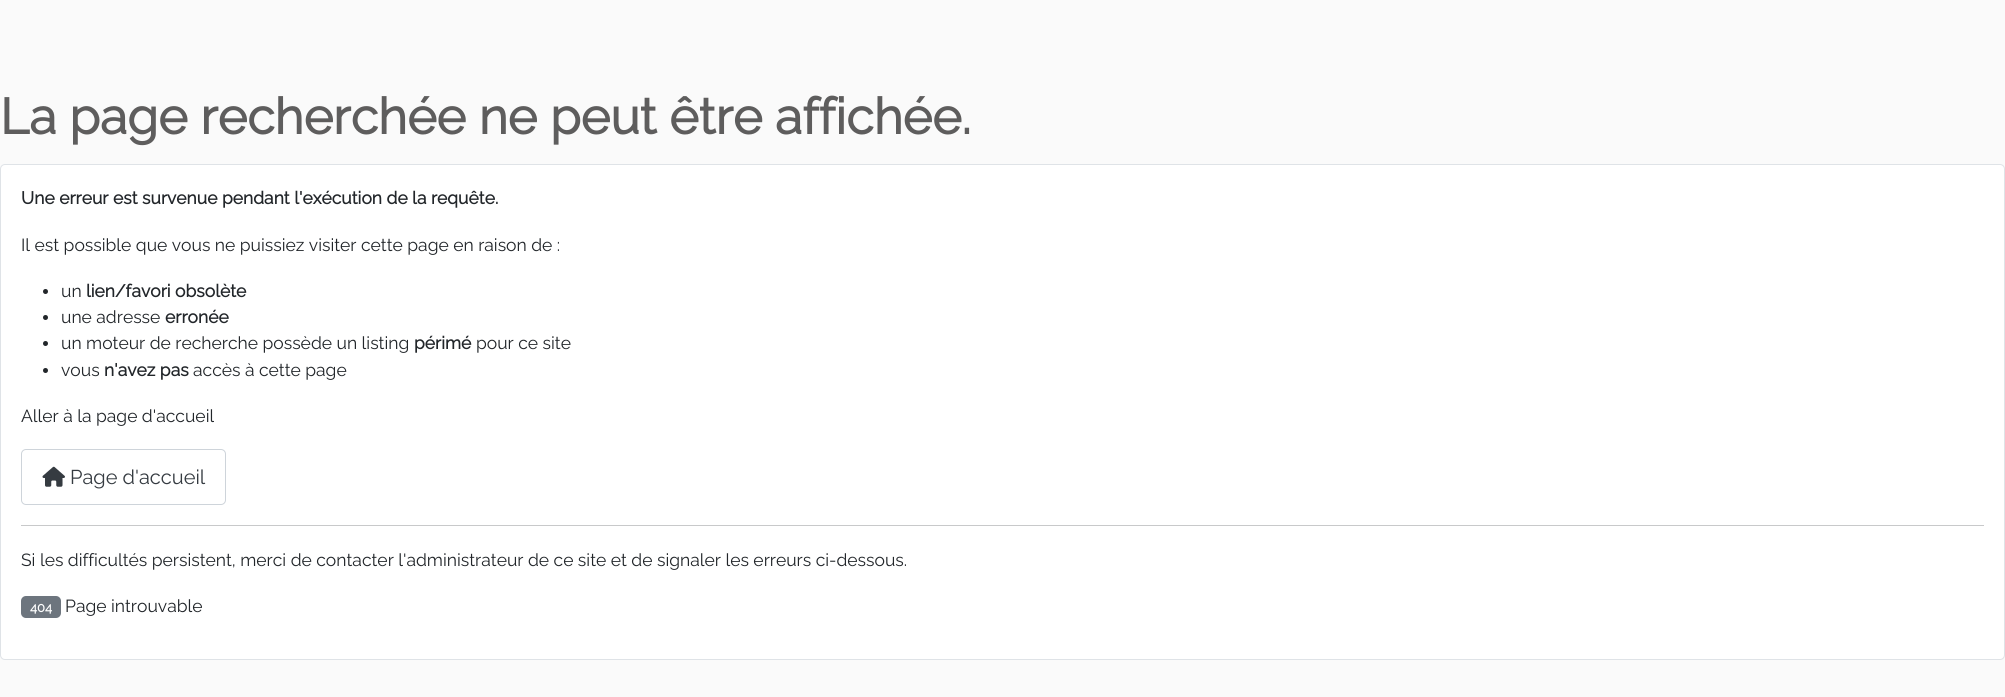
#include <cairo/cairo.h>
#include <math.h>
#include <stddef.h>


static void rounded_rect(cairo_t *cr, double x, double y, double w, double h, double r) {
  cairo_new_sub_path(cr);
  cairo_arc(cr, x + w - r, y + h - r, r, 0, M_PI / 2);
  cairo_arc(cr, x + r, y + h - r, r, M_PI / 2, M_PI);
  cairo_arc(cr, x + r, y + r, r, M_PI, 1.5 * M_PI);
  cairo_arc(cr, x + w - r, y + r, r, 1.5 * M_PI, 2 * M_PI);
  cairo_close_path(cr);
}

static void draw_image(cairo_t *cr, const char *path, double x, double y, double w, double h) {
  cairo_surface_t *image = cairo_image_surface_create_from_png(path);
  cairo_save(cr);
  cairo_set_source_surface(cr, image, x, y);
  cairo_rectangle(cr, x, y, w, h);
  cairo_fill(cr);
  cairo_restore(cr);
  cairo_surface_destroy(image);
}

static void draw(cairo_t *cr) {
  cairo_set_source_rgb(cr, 250 / 255.0, 250 / 255.0, 250 / 255.0);
  cairo_paint(cr);
  cairo_set_source_rgb(cr, 1, 1, 1);
  rounded_rect(cr, 0.5, 164.5, 2004, 495, 4.5);
  cairo_fill_preserve(cr);
  cairo_set_source_rgb(cr, 223 / 255.0, 227 / 255.0, 231 / 255.0);
  cairo_set_line_width(cr, 1);
  cairo_stroke(cr);
  cairo_set_source_rgb(cr, 34 / 255.0, 38 / 255.0, 42 / 255.0);
  cairo_arc(cr, 45.5, 291.5, 2.5, 0, 2 * M_PI);
  cairo_fill(cr);
  cairo_arc(cr, 45.5, 317.5, 2.5, 0, 2 * M_PI);
  cairo_fill(cr);
  cairo_arc(cr, 45.5, 343.5, 2.5, 0, 2 * M_PI);
  cairo_fill(cr);
  cairo_arc(cr, 45.5, 370.5, 2.5, 0, 2 * M_PI);
  cairo_fill(cr);
  rounded_rect(cr, 21.5, 449.5, 204, 55, 4.5);
  cairo_set_source_rgb(cr, 206 / 255.0, 212 / 255.0, 218 / 255.0);
  cairo_stroke(cr);
  draw_image(cr, "images/1.png", 42, 466, 23, 21);
  cairo_set_source_rgb(cr, 200 / 255.0, 201 / 255.0, 202 / 255.0);
  cairo_rectangle(cr, 21, 525, 1963, 1);
  cairo_fill(cr);
  cairo_set_source_rgb(cr, 109 / 255.0, 117 / 255.0, 126 / 255.0);
  rounded_rect(cr, 21, 596, 40, 22, 5);
  cairo_fill(cr);
  cairo_select_font_face(cr, "Raleway", CAIRO_FONT_SLANT_NORMAL, CAIRO_FONT_WEIGHT_BOLD);
  cairo_set_font_size(cr, 50);
  cairo_set_source_rgb(cr, 94 / 255.0, 93 / 255.0, 93 / 255.0);
  cairo_move_to(cr, 0, 134);
  cairo_show_text(cr, "La page recherchée ne peut être affichée.");
  cairo_set_font_size(cr, 17.5);
  cairo_set_source_rgb(cr, 34 / 255.0, 38 / 255.0, 42 / 255.0);
  cairo_move_to(cr, 21, 204);
  cairo_show_text(cr, "Une erreur est survenue pendant l'exécution de la requête.");
  cairo_select_font_face(cr, "Raleway", CAIRO_FONT_SLANT_NORMAL, CAIRO_FONT_WEIGHT_NORMAL);
  cairo_move_to(cr, 21, 251);
  cairo_show_text(cr, "Il est possible que vous ne puissiez visiter cette page en raison de :");
  cairo_move_to(cr, 61, 297);
  cairo_show_text(cr, "un");
  cairo_select_font_face(cr, "Raleway", CAIRO_FONT_SLANT_NORMAL, CAIRO_FONT_WEIGHT_BOLD);
  cairo_move_to(cr, 86, 297);
  cairo_show_text(cr, "lien/favori obsolète");
  cairo_select_font_face(cr, "Raleway", CAIRO_FONT_SLANT_NORMAL, CAIRO_FONT_WEIGHT_NORMAL);
  cairo_move_to(cr, 61, 323);
  cairo_show_text(cr, "une adresse");
  cairo_select_font_face(cr, "Raleway", CAIRO_FONT_SLANT_NORMAL, CAIRO_FONT_WEIGHT_BOLD);
  cairo_move_to(cr, 165, 323);
  cairo_show_text(cr, "erronée");
  cairo_select_font_face(cr, "Raleway", CAIRO_FONT_SLANT_NORMAL, CAIRO_FONT_WEIGHT_NORMAL);
  cairo_move_to(cr, 61, 349);
  cairo_show_text(cr, "un moteur de recherche possède un listing");
  cairo_select_font_face(cr, "Raleway", CAIRO_FONT_SLANT_NORMAL, CAIRO_FONT_WEIGHT_BOLD);
  cairo_move_to(cr, 414, 349);
  cairo_show_text(cr, "périmé");
  cairo_select_font_face(cr, "Raleway", CAIRO_FONT_SLANT_NORMAL, CAIRO_FONT_WEIGHT_NORMAL);
  cairo_move_to(cr, 476, 349);
  cairo_show_text(cr, "pour ce site");
  cairo_move_to(cr, 61, 376);
  cairo_show_text(cr, "vous");
  cairo_select_font_face(cr, "Raleway", CAIRO_FONT_SLANT_NORMAL, CAIRO_FONT_WEIGHT_BOLD);
  cairo_move_to(cr, 104, 376);
  cairo_show_text(cr, "n'avez pas");
  cairo_select_font_face(cr, "Raleway", CAIRO_FONT_SLANT_NORMAL, CAIRO_FONT_WEIGHT_NORMAL);
  cairo_move_to(cr, 193, 376);
  cairo_show_text(cr, "accès à cette page");
  cairo_move_to(cr, 21, 422);
  cairo_show_text(cr, "Aller à la page d'accueil");
  cairo_set_font_size(cr, 20);
  cairo_set_source_rgb(cr, 53 / 255.0, 59 / 255.0, 65 / 255.0);
  cairo_move_to(cr, 70, 484);
  cairo_show_text(cr, "Page d'accueil");
  cairo_set_font_size(cr, 17.5);
  cairo_set_source_rgb(cr, 34 / 255.0, 38 / 255.0, 42 / 255.0);
  cairo_move_to(cr, 21, 566);
  cairo_show_text(cr, "Si les difficultés persistent, merci de contacter l'administrateur de ce site et de signaler les erreurs ci-dessous.");
  cairo_select_font_face(cr, "Raleway", CAIRO_FONT_SLANT_NORMAL, CAIRO_FONT_WEIGHT_BOLD);
  cairo_set_font_size(cr, 13);
  cairo_set_source_rgb(cr, 1, 1, 1);
  cairo_move_to(cr, 30, 612);
  cairo_show_text(cr, "404");
  cairo_select_font_face(cr, "Raleway", CAIRO_FONT_SLANT_NORMAL, CAIRO_FONT_WEIGHT_NORMAL);
  cairo_set_font_size(cr, 17.5);
  cairo_set_source_rgb(cr, 34 / 255.0, 38 / 255.0, 42 / 255.0);
  cairo_move_to(cr, 65, 612);
  cairo_show_text(cr, "Page introuvable");
}

int main(void) {
  cairo_surface_t *surface = cairo_image_surface_create(CAIRO_FORMAT_RGB24, 2005, 697);
  cairo_t *cr = cairo_create(surface);
  cairo_font_options_t *options = cairo_font_options_create();
  cairo_font_options_set_hint_metrics(options, CAIRO_HINT_METRICS_OFF);
  cairo_font_options_set_hint_style(options, CAIRO_HINT_STYLE_NONE);
  cairo_set_font_options(cr, options);
  cairo_set_miter_limit(cr, 4);
  draw(cr);
  cairo_surface_write_to_png(surface, "out.png");
  cairo_font_options_destroy(options);
  cairo_destroy(cr);
  cairo_surface_destroy(surface);
  return 0;
}
